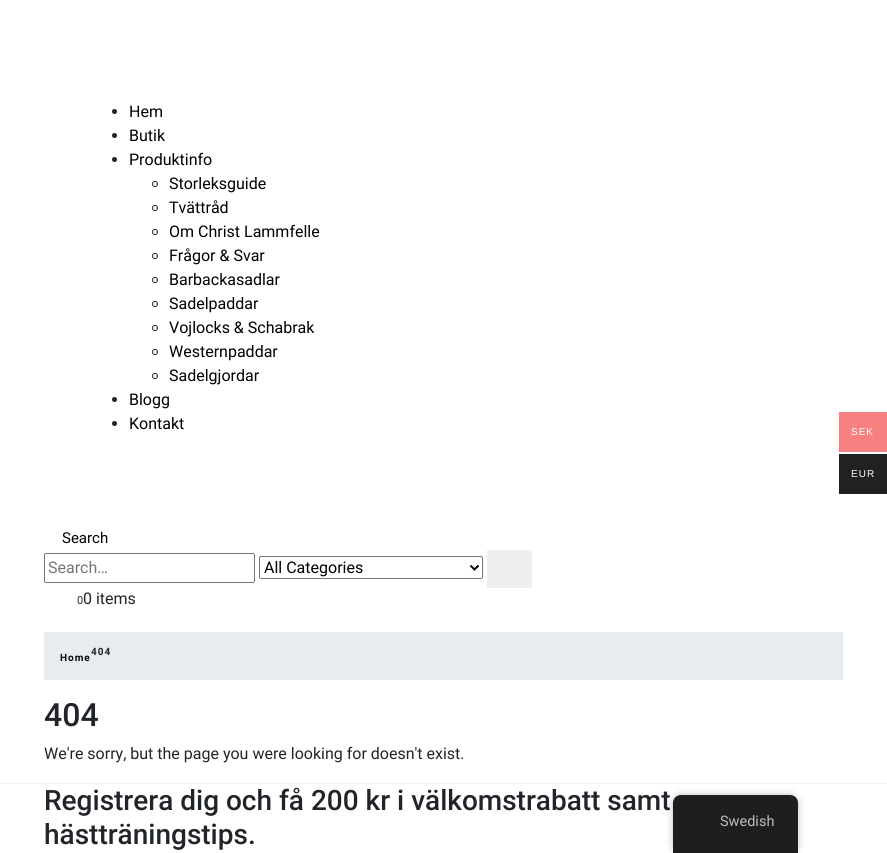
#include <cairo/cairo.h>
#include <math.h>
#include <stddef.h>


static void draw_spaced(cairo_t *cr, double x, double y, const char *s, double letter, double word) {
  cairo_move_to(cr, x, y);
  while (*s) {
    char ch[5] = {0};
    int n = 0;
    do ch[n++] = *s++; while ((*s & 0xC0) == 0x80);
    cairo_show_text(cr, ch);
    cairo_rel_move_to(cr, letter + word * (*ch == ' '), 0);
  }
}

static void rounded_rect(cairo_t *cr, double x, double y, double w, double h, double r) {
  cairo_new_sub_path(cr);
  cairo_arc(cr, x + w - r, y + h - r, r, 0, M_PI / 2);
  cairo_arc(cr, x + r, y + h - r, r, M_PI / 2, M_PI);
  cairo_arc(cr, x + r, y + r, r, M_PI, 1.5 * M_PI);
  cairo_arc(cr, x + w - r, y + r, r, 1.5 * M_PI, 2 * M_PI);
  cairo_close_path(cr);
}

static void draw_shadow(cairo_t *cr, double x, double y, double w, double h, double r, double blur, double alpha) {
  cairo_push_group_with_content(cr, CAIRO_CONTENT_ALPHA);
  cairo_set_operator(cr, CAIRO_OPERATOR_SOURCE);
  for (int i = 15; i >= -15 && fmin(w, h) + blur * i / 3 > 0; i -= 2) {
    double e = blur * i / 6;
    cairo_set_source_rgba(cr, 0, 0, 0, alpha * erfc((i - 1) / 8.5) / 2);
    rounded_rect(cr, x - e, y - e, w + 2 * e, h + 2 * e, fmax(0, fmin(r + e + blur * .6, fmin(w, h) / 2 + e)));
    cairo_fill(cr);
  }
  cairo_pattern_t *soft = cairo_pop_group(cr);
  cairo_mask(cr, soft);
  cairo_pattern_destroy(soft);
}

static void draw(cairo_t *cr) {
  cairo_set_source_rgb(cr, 1, 1, 1);
  cairo_paint(cr);
  cairo_set_source_rgb(cr, 33 / 255.0, 37 / 255.0, 41 / 255.0);
  cairo_arc(cr, 114.5, 111.5, 2.5, 0, 2 * M_PI);
  cairo_fill(cr);
  cairo_arc(cr, 114.5, 135.5, 2.5, 0, 2 * M_PI);
  cairo_fill(cr);
  cairo_arc(cr, 114.5, 159.5, 2.5, 0, 2 * M_PI);
  cairo_fill(cr);
  cairo_arc(cr, 155, 184, 2.5, 0, 2 * M_PI);
  cairo_set_line_width(cr, 1);
  cairo_stroke(cr);
  cairo_arc(cr, 155, 208, 2.5, 0, 2 * M_PI);
  cairo_stroke(cr);
  cairo_arc(cr, 155, 232, 2.5, 0, 2 * M_PI);
  cairo_stroke(cr);
  cairo_arc(cr, 155, 256, 2.5, 0, 2 * M_PI);
  cairo_stroke(cr);
  cairo_arc(cr, 155, 280, 2.5, 0, 2 * M_PI);
  cairo_stroke(cr);
  cairo_arc(cr, 155, 304, 2.5, 0, 2 * M_PI);
  cairo_stroke(cr);
  cairo_arc(cr, 155, 328, 2.5, 0, 2 * M_PI);
  cairo_stroke(cr);
  cairo_arc(cr, 155, 352, 2.5, 0, 2 * M_PI);
  cairo_stroke(cr);
  cairo_arc(cr, 155, 376, 2.5, 0, 2 * M_PI);
  cairo_stroke(cr);
  cairo_arc(cr, 114.5, 399.5, 2.5, 0, 2 * M_PI);
  cairo_fill(cr);
  cairo_arc(cr, 114.5, 423.5, 2.5, 0, 2 * M_PI);
  cairo_fill(cr);
  rounded_rect(cr, 44.5, 553.5, 210, 29, 1.5);
  cairo_set_source_rgb(cr, 118 / 255.0, 118 / 255.0, 118 / 255.0);
  cairo_stroke(cr);
  rounded_rect(cr, 259.5, 556.5, 223, 22, 1.5);
  cairo_stroke(cr);
  cairo_new_path(cr);
  cairo_move_to(cr, 470.5, 565.5);
  cairo_line_to(cr, 474.5, 569.5);
  cairo_line_to(cr, 478.5, 565.5);
  cairo_set_source_rgb(cr, 0, 0, 0);
  cairo_set_line_width(cr, 2);
  cairo_stroke(cr);
  cairo_set_source_rgb(cr, 239 / 255.0, 239 / 255.0, 239 / 255.0);
  cairo_rectangle(cr, 487, 550, 45, 38);
  cairo_fill(cr);
  cairo_set_source_rgb(cr, 233 / 255.0, 236 / 255.0, 239 / 255.0);
  cairo_rectangle(cr, 44, 632, 799, 48);
  cairo_fill(cr);
  cairo_set_source_rgb(cr, 240 / 255.0, 240 / 255.0, 240 / 255.0);
  cairo_rectangle(cr, 0, 783, 887, 1);
  cairo_fill(cr);
  cairo_set_source_rgb(cr, 247 / 255.0, 128 / 255.0, 128 / 255.0);
  cairo_rectangle(cr, 839, 412, 48, 40);
  cairo_fill(cr);
  cairo_set_source_rgb(cr, 33 / 255.0, 33 / 255.0, 33 / 255.0);
  cairo_rectangle(cr, 839, 454, 48, 40);
  cairo_fill(cr);
  cairo_set_source_rgb(cr, 0, 0, 0);
  draw_shadow(cr, 673, 795, 125, 58, 8, 4, 0.25);
  cairo_set_source_rgb(cr, 30 / 255.0, 30 / 255.0, 30 / 255.0);
  cairo_new_path(cr);
  cairo_move_to(cr, 681, 795);
  cairo_line_to(cr, 790, 795);
  cairo_curve_to(cr, 794.5, 795, 798, 798.5, 798, 803);
  cairo_line_to(cr, 798, 853);
  cairo_line_to(cr, 673, 853);
  cairo_line_to(cr, 673, 803);
  cairo_curve_to(cr, 673, 798.5, 676.5, 795, 681, 795);
  cairo_close_path(cr);
  cairo_fill(cr);
  cairo_select_font_face(cr, "Roboto", CAIRO_FONT_SLANT_NORMAL, CAIRO_FONT_WEIGHT_NORMAL);
  cairo_set_font_size(cr, 16);
  cairo_set_source_rgb(cr, 0, 0, 0);
  cairo_move_to(cr, 129, 117);
  cairo_show_text(cr, "Hem");
  cairo_move_to(cr, 129, 141);
  cairo_show_text(cr, "Butik");
  cairo_move_to(cr, 129, 165);
  cairo_show_text(cr, "Produktinfo");
  cairo_move_to(cr, 169, 189);
  cairo_show_text(cr, "Storleksguide");
  cairo_move_to(cr, 169, 213);
  cairo_show_text(cr, "Tvättråd");
  cairo_move_to(cr, 169, 237);
  cairo_show_text(cr, "Om Christ Lammfelle");
  cairo_move_to(cr, 169, 261);
  cairo_show_text(cr, "Frågor & Svar");
  cairo_move_to(cr, 169, 285);
  cairo_show_text(cr, "Barbackasadlar");
  cairo_move_to(cr, 169, 309);
  cairo_show_text(cr, "Sadelpaddar");
  cairo_move_to(cr, 169, 333);
  cairo_show_text(cr, "Vojlocks & Schabrak");
  cairo_move_to(cr, 169, 357);
  cairo_show_text(cr, "Westernpaddar");
  cairo_move_to(cr, 169, 381);
  cairo_show_text(cr, "Sadelgjordar");
  cairo_move_to(cr, 129, 405);
  cairo_show_text(cr, "Blogg");
  cairo_move_to(cr, 129, 429);
  cairo_show_text(cr, "Kontakt");
  cairo_set_font_size(cr, 15);
  cairo_move_to(cr, 62, 543);
  cairo_show_text(cr, "Search");
  cairo_set_font_size(cr, 16);
  cairo_set_source_rgb(cr, 117 / 255.0, 117 / 255.0, 117 / 255.0);
  cairo_move_to(cr, 48, 573);
  cairo_show_text(cr, "Search…");
  cairo_set_source_rgb(cr, 0, 0, 0);
  cairo_move_to(cr, 264, 573);
  cairo_show_text(cr, "All Categories");
  cairo_set_font_size(cr, 11);
  cairo_set_source_rgb(cr, 33 / 255.0, 37 / 255.0, 41 / 255.0);
  cairo_move_to(cr, 77, 604);
  cairo_show_text(cr, "0");
  cairo_set_font_size(cr, 16);
  cairo_move_to(cr, 83, 604);
  cairo_show_text(cr, "0 items");
  cairo_select_font_face(cr, "Roboto", CAIRO_FONT_SLANT_NORMAL, CAIRO_FONT_WEIGHT_BOLD);
  cairo_set_font_size(cr, 10);
  draw_spaced(cr, 91, 655, "404", 1, 0);
  cairo_set_source_rgb(cr, 0, 0, 0);
  draw_spaced(cr, 60, 661, "Home", 1, 0);
  cairo_select_font_face(cr, "Roboto Medium", CAIRO_FONT_SLANT_NORMAL, CAIRO_FONT_WEIGHT_NORMAL);
  cairo_set_font_size(cr, 32);
  cairo_set_source_rgb(cr, 33 / 255.0, 37 / 255.0, 41 / 255.0);
  cairo_move_to(cr, 44, 726);
  cairo_show_text(cr, "404");
  cairo_select_font_face(cr, "Roboto", CAIRO_FONT_SLANT_NORMAL, CAIRO_FONT_WEIGHT_NORMAL);
  cairo_set_font_size(cr, 16);
  cairo_move_to(cr, 44, 759);
  cairo_show_text(cr, "We're sorry, but the page you were looking for doesn't exist.");
  cairo_select_font_face(cr, "Roboto Medium", CAIRO_FONT_SLANT_NORMAL, CAIRO_FONT_WEIGHT_NORMAL);
  cairo_set_font_size(cr, 28);
  cairo_move_to(cr, 44, 810);
  cairo_show_text(cr, "Registrera dig och få 200 kr i välkomstrabatt samt");
  cairo_move_to(cr, 44, 844);
  cairo_show_text(cr, "hästträningstips.");
  cairo_select_font_face(cr, "Liberation Sans", CAIRO_FONT_SLANT_NORMAL, CAIRO_FONT_WEIGHT_NORMAL);
  cairo_set_font_size(cr, 10);
  cairo_set_source_rgb(cr, 1, 1, 1);
  draw_spaced(cr, 851, 435, "SEK", 1, 0);
  draw_spaced(cr, 851, 477, "EUR", 1, 0);
  cairo_select_font_face(cr, "Roboto", CAIRO_FONT_SLANT_NORMAL, CAIRO_FONT_WEIGHT_NORMAL);
  cairo_set_font_size(cr, 14.5);
  cairo_set_source_rgb(cr, 189 / 255.0, 189 / 255.0, 189 / 255.0);
  cairo_move_to(cr, 720, 826);
  cairo_show_text(cr, "Swedish");
}

int main(void) {
  cairo_surface_t *surface = cairo_image_surface_create(CAIRO_FORMAT_RGB24, 887, 853);
  cairo_t *cr = cairo_create(surface);
  cairo_font_options_t *options = cairo_font_options_create();
  cairo_font_options_set_hint_metrics(options, CAIRO_HINT_METRICS_OFF);
  cairo_font_options_set_hint_style(options, CAIRO_HINT_STYLE_NONE);
  cairo_set_font_options(cr, options);
  cairo_set_miter_limit(cr, 4);
  draw(cr);
  cairo_surface_write_to_png(surface, "out.png");
  cairo_font_options_destroy(options);
  cairo_destroy(cr);
  cairo_surface_destroy(surface);
  return 0;
}
